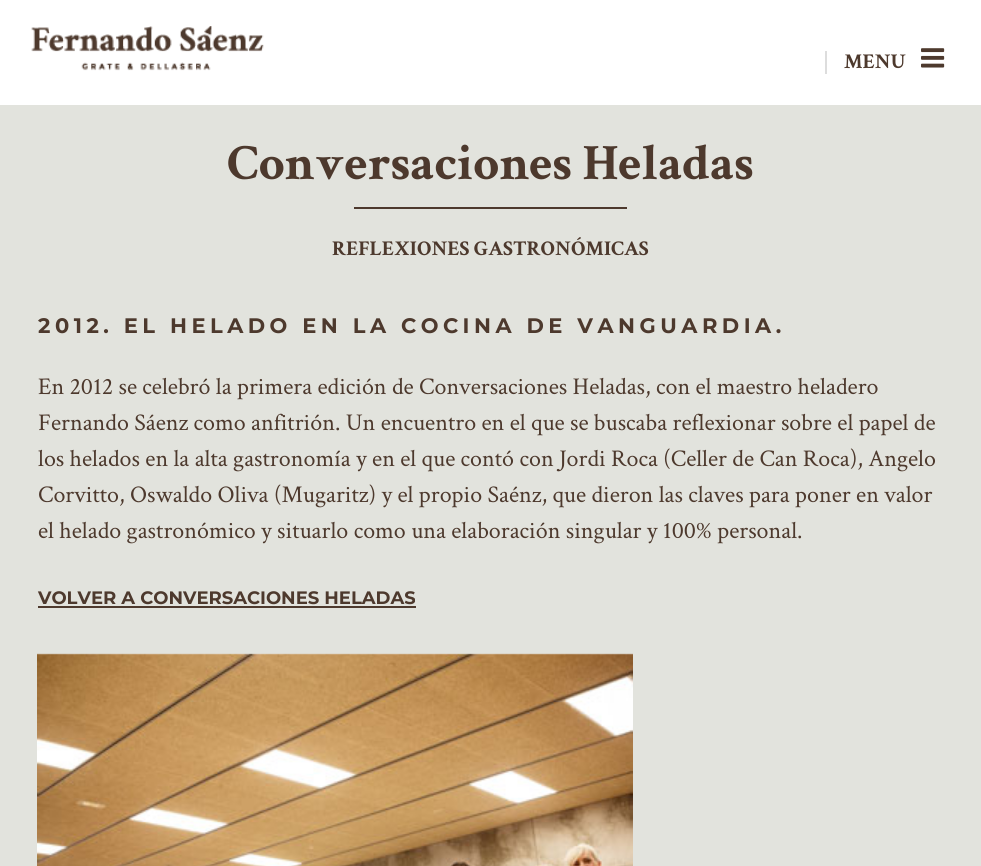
#include <cairo/cairo.h>
#include <math.h>
#include <stddef.h>


static void draw_spaced(cairo_t *cr, double x, double y, const char *s, double letter, double word) {
  cairo_move_to(cr, x, y);
  while (*s) {
    char ch[5] = {0};
    int n = 0;
    do ch[n++] = *s++; while ((*s & 0xC0) == 0x80);
    cairo_show_text(cr, ch);
    cairo_rel_move_to(cr, letter + word * (*ch == ' '), 0);
  }
}

static void draw_image(cairo_t *cr, const char *path, double x, double y, double w, double h) {
  cairo_surface_t *image = cairo_image_surface_create_from_png(path);
  cairo_save(cr);
  cairo_set_source_surface(cr, image, x, y);
  cairo_rectangle(cr, x, y, w, h);
  cairo_fill(cr);
  cairo_restore(cr);
  cairo_surface_destroy(image);
}

static void draw(cairo_t *cr) {
  cairo_set_source_rgb(cr, 226 / 255.0, 227 / 255.0, 221 / 255.0);
  cairo_paint(cr);
  cairo_set_source_rgb(cr, 1, 1, 1);
  cairo_rectangle(cr, 0, 0, 981, 105);
  cairo_fill(cr);
  draw_image(cr, "images/1.png", 31, 26, 233, 45);
  cairo_set_source_rgb(cr, 221 / 255.0, 221 / 255.0, 221 / 255.0);
  cairo_rectangle(cr, 825, 51, 2, 23);
  cairo_fill(cr);
  draw_image(cr, "images/2.png", 921, 48, 24, 20);
  cairo_set_source_rgb(cr, 77 / 255.0, 57 / 255.0, 45 / 255.0);
  cairo_rectangle(cr, 354, 207, 273, 2);
  cairo_fill(cr);
  cairo_rectangle(cr, 38, 606, 378, 2);
  cairo_fill(cr);
  draw_image(cr, "images/3.png", 37, 653, 596, 213);
  cairo_select_font_face(cr, "Crimson Text", CAIRO_FONT_SLANT_NORMAL, CAIRO_FONT_WEIGHT_BOLD);
  cairo_set_font_size(cr, 21);
  cairo_move_to(cr, 844, 68);
  cairo_show_text(cr, "MENU");
  cairo_set_font_size(cr, 51);
  cairo_move_to(cr, 227, 179);
  cairo_show_text(cr, "Conversaciones Heladas");
  cairo_set_font_size(cr, 21);
  cairo_move_to(cr, 332, 255);
  cairo_show_text(cr, "REFLEXIONES GASTRONÓMICAS");
  cairo_select_font_face(cr, "Montserrat", CAIRO_FONT_SLANT_NORMAL, CAIRO_FONT_WEIGHT_BOLD);
  draw_spaced(cr, 38, 333, "2012. EL HELADO EN LA COCINA DE VANGUARDIA.", 4.5, 0);
  cairo_select_font_face(cr, "Crimson Text", CAIRO_FONT_SLANT_NORMAL, CAIRO_FONT_WEIGHT_NORMAL);
  cairo_set_font_size(cr, 24);
  cairo_move_to(cr, 38, 394);
  cairo_show_text(cr, "En 2012 se celebró la primera edición de Conversaciones Heladas, con el maestro heladero");
  cairo_move_to(cr, 38, 430);
  cairo_show_text(cr, "Fernando Sáenz como anfitrión. Un encuentro en el que se buscaba reflexionar sobre el papel de");
  cairo_move_to(cr, 38, 466);
  cairo_show_text(cr, "los helados en la alta gastronomía y en el que contó con Jordi Roca (Celler de Can Roca), Angelo");
  cairo_move_to(cr, 38, 502);
  cairo_show_text(cr, "Corvitto, Oswaldo Oliva (Mugaritz) y el propio Saénz, que dieron las claves para poner en valor");
  cairo_move_to(cr, 38, 538);
  cairo_show_text(cr, "el helado gastronómico y situarlo como una elaboración singular y 100% personal.");
  cairo_select_font_face(cr, "Montserrat", CAIRO_FONT_SLANT_NORMAL, CAIRO_FONT_WEIGHT_BOLD);
  cairo_set_font_size(cr, 18);
  cairo_move_to(cr, 38, 604);
  cairo_show_text(cr, "VOLVER A CONVERSACIONES HELADAS");
}

int main(void) {
  cairo_surface_t *surface = cairo_image_surface_create(CAIRO_FORMAT_RGB24, 981, 866);
  cairo_t *cr = cairo_create(surface);
  cairo_font_options_t *options = cairo_font_options_create();
  cairo_font_options_set_hint_metrics(options, CAIRO_HINT_METRICS_OFF);
  cairo_font_options_set_hint_style(options, CAIRO_HINT_STYLE_NONE);
  cairo_set_font_options(cr, options);
  cairo_set_miter_limit(cr, 4);
  draw(cr);
  cairo_surface_write_to_png(surface, "out.png");
  cairo_font_options_destroy(options);
  cairo_destroy(cr);
  cairo_surface_destroy(surface);
  return 0;
}
